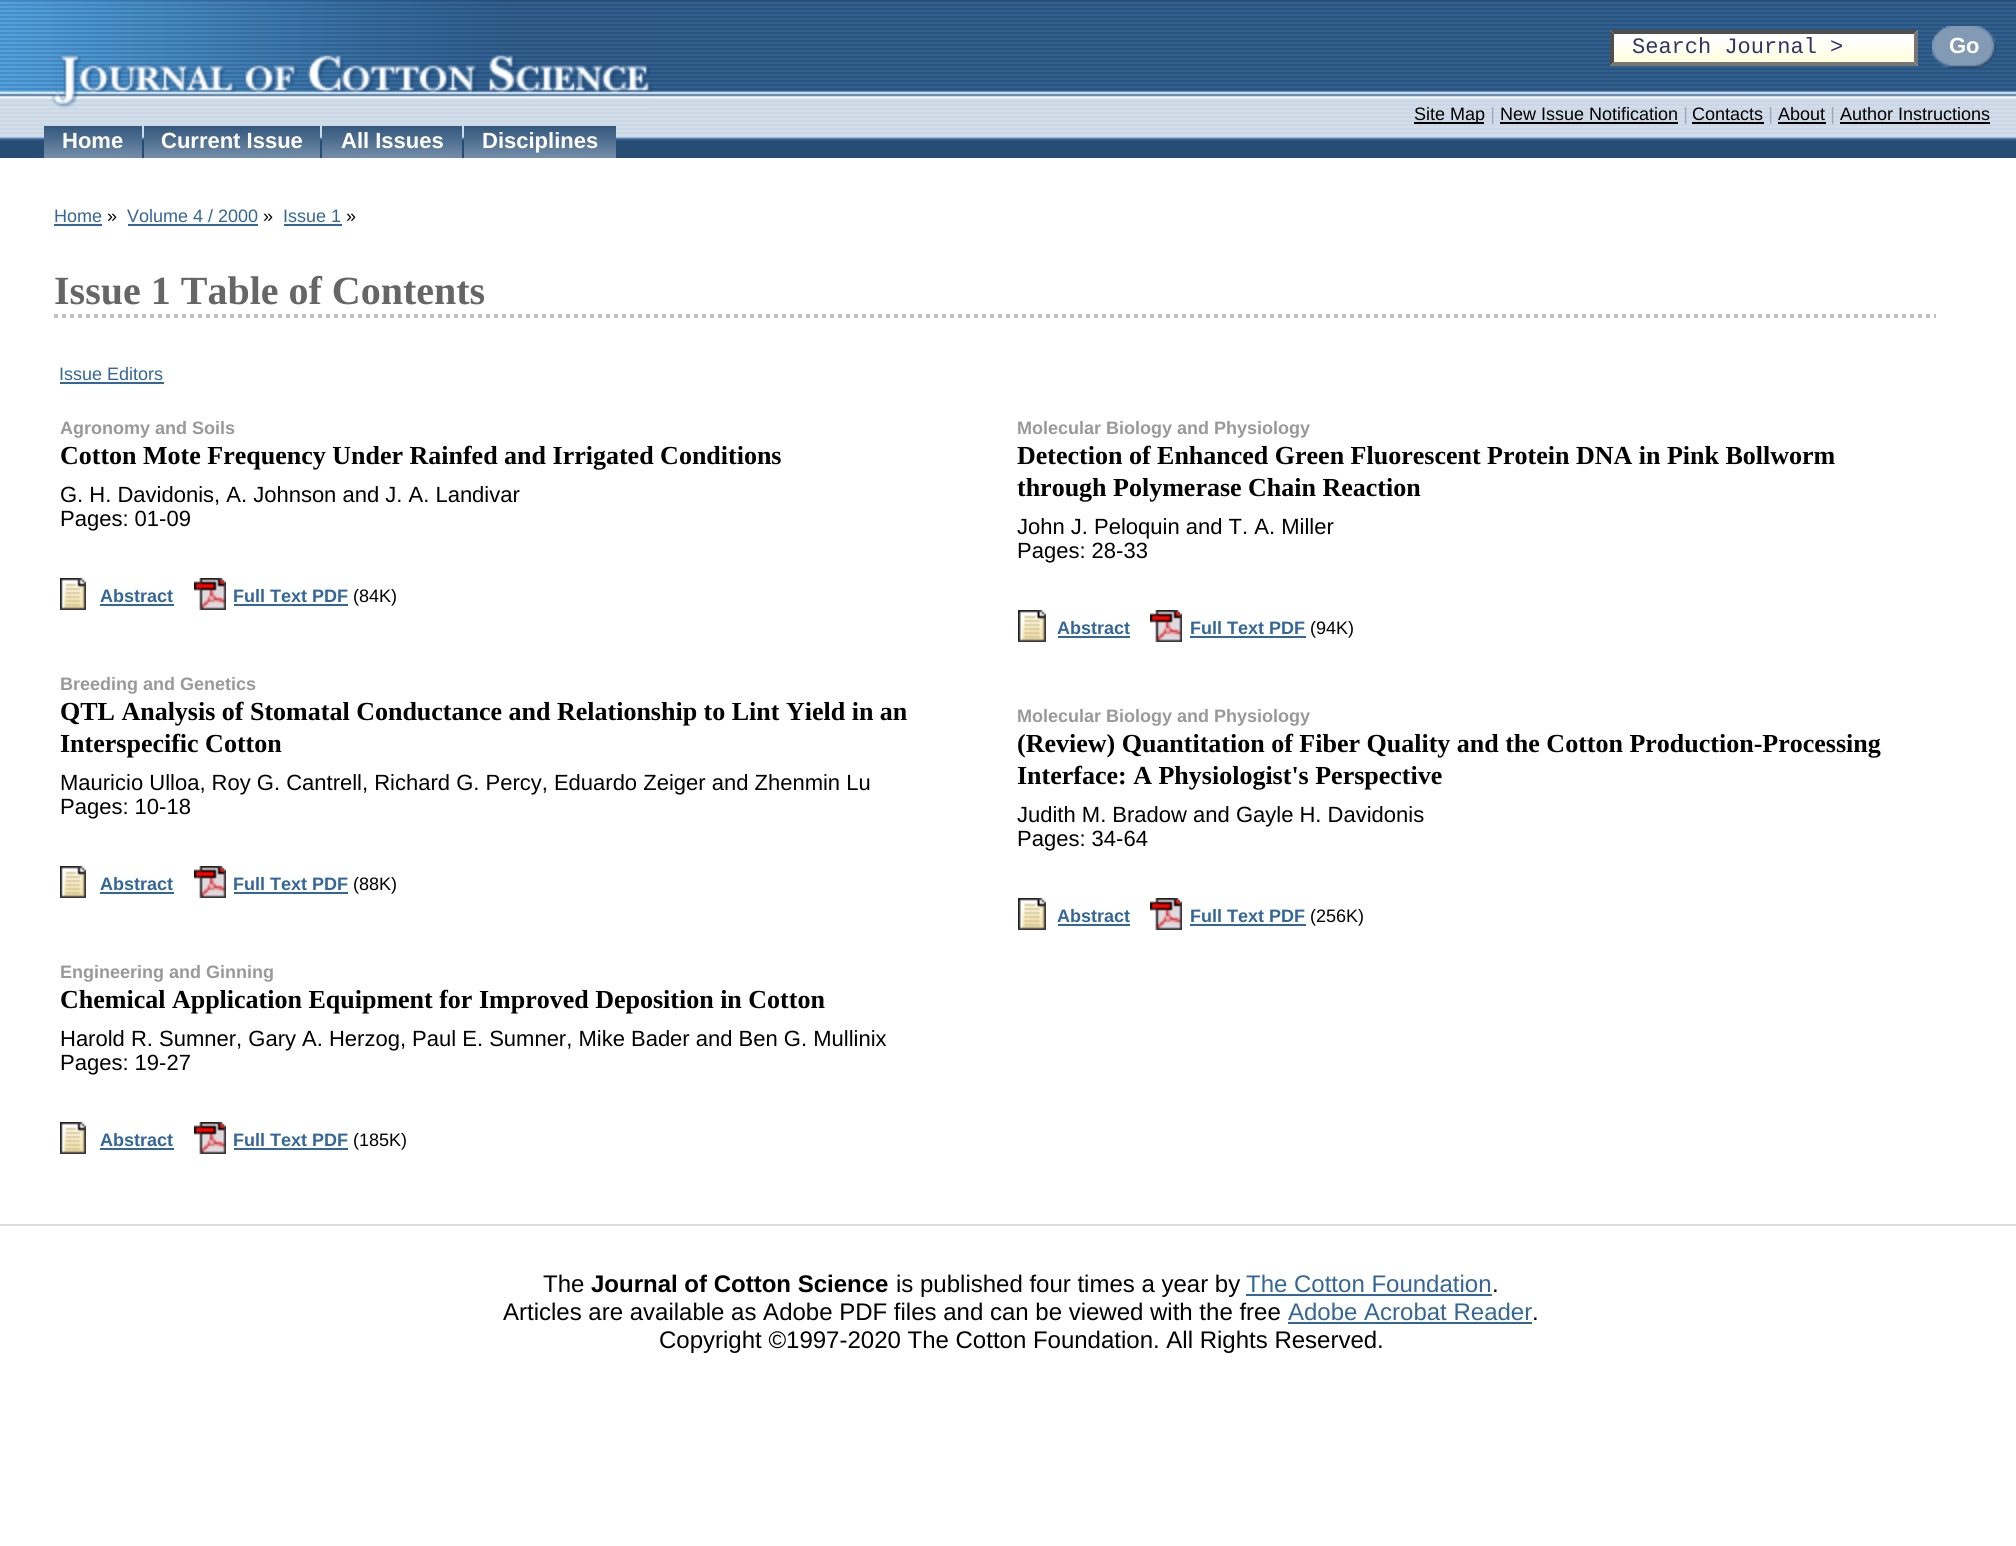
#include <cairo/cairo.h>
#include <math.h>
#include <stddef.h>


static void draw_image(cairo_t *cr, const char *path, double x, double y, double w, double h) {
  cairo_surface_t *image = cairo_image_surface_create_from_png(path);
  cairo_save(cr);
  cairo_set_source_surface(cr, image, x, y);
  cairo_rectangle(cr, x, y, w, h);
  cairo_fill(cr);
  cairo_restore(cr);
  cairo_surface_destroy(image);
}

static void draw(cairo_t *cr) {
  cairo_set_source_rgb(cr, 1, 1, 1);
  cairo_paint(cr);
  draw_image(cr, "images/1.png", 0, 0, 2016, 158);
  cairo_set_source_rgb(cr, 1, 1, 1);
  cairo_rectangle(cr, 1610, 30, 308, 10);
  cairo_fill(cr);
  draw_image(cr, "images/2.png", 1610, 40, 308, 26);
  cairo_set_source_rgb(cr, 79 / 255.0, 79 / 255.0, 79 / 255.0);
  cairo_new_path(cr);
  cairo_move_to(cr, 1610, 30);
  cairo_line_to(cr, 1918, 30);
  cairo_line_to(cr, 1914, 34);
  cairo_line_to(cr, 1614, 34);
  cairo_close_path(cr);
  cairo_fill(cr);
  cairo_set_source_rgb(cr, 118 / 255.0, 118 / 255.0, 118 / 255.0);
  cairo_new_path(cr);
  cairo_move_to(cr, 1918, 30);
  cairo_line_to(cr, 1918, 66);
  cairo_line_to(cr, 1914, 62);
  cairo_line_to(cr, 1914, 34);
  cairo_close_path(cr);
  cairo_fill(cr);
  cairo_new_path(cr);
  cairo_move_to(cr, 1918, 66);
  cairo_line_to(cr, 1610, 66);
  cairo_line_to(cr, 1614, 62);
  cairo_line_to(cr, 1914, 62);
  cairo_close_path(cr);
  cairo_fill(cr);
  cairo_set_source_rgb(cr, 79 / 255.0, 79 / 255.0, 79 / 255.0);
  cairo_new_path(cr);
  cairo_move_to(cr, 1610, 66);
  cairo_line_to(cr, 1610, 30);
  cairo_line_to(cr, 1614, 34);
  cairo_line_to(cr, 1614, 62);
  cairo_close_path(cr);
  cairo_fill(cr);
  draw_image(cr, "images/3.png", 1932, 26, 64, 42);
  cairo_set_source_rgb(cr, 0, 0, 0);
  cairo_rectangle(cr, 1414, 122, 70, 2);
  cairo_fill(cr);
  cairo_rectangle(cr, 1500, 122, 178, 2);
  cairo_fill(cr);
  cairo_rectangle(cr, 1692, 122, 72, 2);
  cairo_fill(cr);
  cairo_rectangle(cr, 1778, 122, 48, 2);
  cairo_fill(cr);
  cairo_rectangle(cr, 1840, 122, 150, 2);
  cairo_fill(cr);
  draw_image(cr, "images/4.png", 0, 0, 652, 108);
  draw_image(cr, "images/5.png", 44, 126, 98, 32);
  draw_image(cr, "images/6.png", 144, 126, 176, 32);
  draw_image(cr, "images/7.png", 322, 126, 140, 32);
  draw_image(cr, "images/8.png", 464, 126, 152, 32);
  cairo_set_source_rgb(cr, 51 / 255.0, 102 / 255.0, 153 / 255.0);
  cairo_rectangle(cr, 54, 224, 48, 2);
  cairo_fill(cr);
  cairo_rectangle(cr, 128, 224, 130, 2);
  cairo_fill(cr);
  cairo_rectangle(cr, 284, 224, 58, 2);
  cairo_fill(cr);
  cairo_new_path(cr);
  cairo_move_to(cr, 54, 316);
  cairo_line_to(cr, 1936, 316);
  cairo_set_source_rgb(cr, 192 / 255.0, 192 / 255.0, 192 / 255.0);
  cairo_set_line_width(cr, 4);
  cairo_set_dash(cr, (double[]){4, 4}, 2, 0);
  cairo_stroke(cr);
  cairo_set_source_rgb(cr, 51 / 255.0, 102 / 255.0, 153 / 255.0);
  cairo_rectangle(cr, 60, 382, 104, 2);
  cairo_fill(cr);
  draw_image(cr, "images/9.png", 60, 578, 26, 32);
  cairo_rectangle(cr, 100, 604, 74, 2);
  cairo_fill(cr);
  draw_image(cr, "images/10.png", 194, 578, 32, 32);
  cairo_rectangle(cr, 234, 604, 114, 2);
  cairo_fill(cr);
  draw_image(cr, "images/9.png", 60, 866, 26, 32);
  cairo_rectangle(cr, 100, 892, 74, 2);
  cairo_fill(cr);
  draw_image(cr, "images/10.png", 194, 866, 32, 32);
  cairo_rectangle(cr, 234, 892, 114, 2);
  cairo_fill(cr);
  draw_image(cr, "images/9.png", 60, 1122, 26, 32);
  cairo_rectangle(cr, 100, 1148, 74, 2);
  cairo_fill(cr);
  draw_image(cr, "images/10.png", 194, 1122, 32, 32);
  cairo_rectangle(cr, 234, 1148, 114, 2);
  cairo_fill(cr);
  draw_image(cr, "images/11.png", 1018, 610, 28, 32);
  cairo_rectangle(cr, 1058, 636, 72, 2);
  cairo_fill(cr);
  draw_image(cr, "images/10.png", 1150, 610, 32, 32);
  cairo_rectangle(cr, 1190, 636, 116, 2);
  cairo_fill(cr);
  draw_image(cr, "images/11.png", 1018, 898, 28, 32);
  cairo_rectangle(cr, 1058, 924, 72, 2);
  cairo_fill(cr);
  draw_image(cr, "images/10.png", 1150, 898, 32, 32);
  cairo_rectangle(cr, 1190, 924, 116, 2);
  cairo_fill(cr);
  cairo_set_source_rgb(cr, 221 / 255.0, 221 / 255.0, 221 / 255.0);
  cairo_rectangle(cr, 0, 1224, 2016, 2);
  cairo_fill(cr);
  cairo_set_source_rgb(cr, 51 / 255.0, 102 / 255.0, 153 / 255.0);
  cairo_rectangle(cr, 1246, 1294, 246, 2);
  cairo_fill(cr);
  cairo_rectangle(cr, 1288, 1322, 244, 2);
  cairo_fill(cr);
  cairo_select_font_face(cr, "Liberation Mono", CAIRO_FONT_SLANT_NORMAL, CAIRO_FONT_WEIGHT_NORMAL);
  cairo_set_font_size(cr, 22);
  cairo_set_source_rgb(cr, 51 / 255.0, 51 / 255.0, 102 / 255.0);
  cairo_move_to(cr, 1632, 53);
  cairo_show_text(cr, "Search Journal >");
  cairo_select_font_face(cr, "Liberation Sans", CAIRO_FONT_SLANT_NORMAL, CAIRO_FONT_WEIGHT_BOLD);
  cairo_set_source_rgb(cr, 1, 1, 1);
  cairo_move_to(cr, 1949, 53);
  cairo_show_text(cr, "Go");
  cairo_select_font_face(cr, "Liberation Sans", CAIRO_FONT_SLANT_NORMAL, CAIRO_FONT_WEIGHT_NORMAL);
  cairo_set_font_size(cr, 18);
  cairo_set_source_rgb(cr, 0, 0, 0);
  cairo_move_to(cr, 1414, 120);
  cairo_show_text(cr, "Site Map");
  cairo_select_font_face(cr, "Liberation Sans", CAIRO_FONT_SLANT_ITALIC, CAIRO_FONT_WEIGHT_NORMAL);
  cairo_set_source_rgb(cr, 158 / 255.0, 169 / 255.0, 181 / 255.0);
  cairo_move_to(cr, 1490, 120);
  cairo_show_text(cr, "|");
  cairo_select_font_face(cr, "Liberation Sans", CAIRO_FONT_SLANT_NORMAL, CAIRO_FONT_WEIGHT_NORMAL);
  cairo_set_source_rgb(cr, 0, 0, 0);
  cairo_move_to(cr, 1500, 120);
  cairo_show_text(cr, "New Issue Notification");
  cairo_select_font_face(cr, "Liberation Sans", CAIRO_FONT_SLANT_ITALIC, CAIRO_FONT_WEIGHT_NORMAL);
  cairo_set_source_rgb(cr, 158 / 255.0, 169 / 255.0, 181 / 255.0);
  cairo_move_to(cr, 1683, 120);
  cairo_show_text(cr, "|");
  cairo_select_font_face(cr, "Liberation Sans", CAIRO_FONT_SLANT_NORMAL, CAIRO_FONT_WEIGHT_NORMAL);
  cairo_set_source_rgb(cr, 0, 0, 0);
  cairo_move_to(cr, 1692, 120);
  cairo_show_text(cr, "Contacts");
  cairo_select_font_face(cr, "Liberation Sans", CAIRO_FONT_SLANT_ITALIC, CAIRO_FONT_WEIGHT_NORMAL);
  cairo_set_source_rgb(cr, 158 / 255.0, 169 / 255.0, 181 / 255.0);
  cairo_move_to(cr, 1768, 120);
  cairo_show_text(cr, "|");
  cairo_select_font_face(cr, "Liberation Sans", CAIRO_FONT_SLANT_NORMAL, CAIRO_FONT_WEIGHT_NORMAL);
  cairo_set_source_rgb(cr, 0, 0, 0);
  cairo_move_to(cr, 1778, 120);
  cairo_show_text(cr, "About");
  cairo_select_font_face(cr, "Liberation Sans", CAIRO_FONT_SLANT_ITALIC, CAIRO_FONT_WEIGHT_NORMAL);
  cairo_set_source_rgb(cr, 158 / 255.0, 169 / 255.0, 181 / 255.0);
  cairo_move_to(cr, 1830, 120);
  cairo_show_text(cr, "|");
  cairo_select_font_face(cr, "Liberation Sans", CAIRO_FONT_SLANT_NORMAL, CAIRO_FONT_WEIGHT_NORMAL);
  cairo_set_source_rgb(cr, 0, 0, 0);
  cairo_move_to(cr, 1840, 120);
  cairo_show_text(cr, "Author Instructions");
  cairo_select_font_face(cr, "Liberation Sans", CAIRO_FONT_SLANT_NORMAL, CAIRO_FONT_WEIGHT_BOLD);
  cairo_set_font_size(cr, 22);
  cairo_set_source_rgb(cr, 1, 1, 1);
  cairo_move_to(cr, 62, 148);
  cairo_show_text(cr, "Home");
  cairo_move_to(cr, 161, 148);
  cairo_show_text(cr, "Current Issue");
  cairo_move_to(cr, 341, 148);
  cairo_show_text(cr, "All Issues");
  cairo_move_to(cr, 482, 148);
  cairo_show_text(cr, "Disciplines");
  cairo_select_font_face(cr, "Liberation Sans", CAIRO_FONT_SLANT_NORMAL, CAIRO_FONT_WEIGHT_NORMAL);
  cairo_set_font_size(cr, 18);
  cairo_set_source_rgb(cr, 51 / 255.0, 102 / 255.0, 153 / 255.0);
  cairo_move_to(cr, 54, 222);
  cairo_show_text(cr, "Home");
  cairo_set_source_rgb(cr, 0, 0, 0);
  cairo_move_to(cr, 107, 222);
  cairo_show_text(cr, "»");
  cairo_set_source_rgb(cr, 51 / 255.0, 102 / 255.0, 153 / 255.0);
  cairo_move_to(cr, 127, 222);
  cairo_show_text(cr, "Volume 4 / 2000");
  cairo_set_source_rgb(cr, 0, 0, 0);
  cairo_move_to(cr, 263, 222);
  cairo_show_text(cr, "»");
  cairo_set_source_rgb(cr, 51 / 255.0, 102 / 255.0, 153 / 255.0);
  cairo_move_to(cr, 283, 222);
  cairo_show_text(cr, "Issue 1");
  cairo_set_source_rgb(cr, 0, 0, 0);
  cairo_move_to(cr, 346, 222);
  cairo_show_text(cr, "»");
  cairo_select_font_face(cr, "Liberation Serif", CAIRO_FONT_SLANT_NORMAL, CAIRO_FONT_WEIGHT_BOLD);
  cairo_set_font_size(cr, 40);
  cairo_set_source_rgb(cr, 102 / 255.0, 102 / 255.0, 102 / 255.0);
  cairo_move_to(cr, 54, 304);
  cairo_show_text(cr, "Issue 1 Table of Contents");
  cairo_select_font_face(cr, "Liberation Sans", CAIRO_FONT_SLANT_NORMAL, CAIRO_FONT_WEIGHT_NORMAL);
  cairo_set_font_size(cr, 18);
  cairo_set_source_rgb(cr, 51 / 255.0, 102 / 255.0, 153 / 255.0);
  cairo_move_to(cr, 59, 380);
  cairo_show_text(cr, "Issue Editors");
  cairo_select_font_face(cr, "Liberation Sans", CAIRO_FONT_SLANT_NORMAL, CAIRO_FONT_WEIGHT_BOLD);
  cairo_set_source_rgb(cr, 153 / 255.0, 153 / 255.0, 153 / 255.0);
  cairo_move_to(cr, 60, 434);
  cairo_show_text(cr, "Agronomy and Soils");
  cairo_select_font_face(cr, "Liberation Serif", CAIRO_FONT_SLANT_NORMAL, CAIRO_FONT_WEIGHT_BOLD);
  cairo_set_font_size(cr, 26);
  cairo_set_source_rgb(cr, 0, 0, 0);
  cairo_move_to(cr, 60, 464);
  cairo_show_text(cr, "Cotton Mote Frequency Under Rainfed and Irrigated Conditions");
  cairo_select_font_face(cr, "Liberation Sans", CAIRO_FONT_SLANT_NORMAL, CAIRO_FONT_WEIGHT_NORMAL);
  cairo_set_font_size(cr, 22);
  cairo_move_to(cr, 60, 502);
  cairo_show_text(cr, "G. H. Davidonis, A. Johnson and J. A. Landivar");
  cairo_move_to(cr, 60, 526);
  cairo_show_text(cr, "Pages: 01-09");
  cairo_select_font_face(cr, "Liberation Sans", CAIRO_FONT_SLANT_NORMAL, CAIRO_FONT_WEIGHT_BOLD);
  cairo_set_font_size(cr, 18);
  cairo_set_source_rgb(cr, 51 / 255.0, 102 / 255.0, 153 / 255.0);
  cairo_move_to(cr, 100, 602);
  cairo_show_text(cr, "Abstract");
  cairo_move_to(cr, 233, 602);
  cairo_show_text(cr, "Full Text PDF");
  cairo_select_font_face(cr, "Liberation Sans", CAIRO_FONT_SLANT_NORMAL, CAIRO_FONT_WEIGHT_NORMAL);
  cairo_set_source_rgb(cr, 0, 0, 0);
  cairo_move_to(cr, 353, 602);
  cairo_show_text(cr, "(84K)");
  cairo_select_font_face(cr, "Liberation Sans", CAIRO_FONT_SLANT_NORMAL, CAIRO_FONT_WEIGHT_BOLD);
  cairo_set_source_rgb(cr, 153 / 255.0, 153 / 255.0, 153 / 255.0);
  cairo_move_to(cr, 60, 690);
  cairo_show_text(cr, "Breeding and Genetics");
  cairo_select_font_face(cr, "Liberation Serif", CAIRO_FONT_SLANT_NORMAL, CAIRO_FONT_WEIGHT_BOLD);
  cairo_set_font_size(cr, 26);
  cairo_set_source_rgb(cr, 0, 0, 0);
  cairo_move_to(cr, 60, 720);
  cairo_show_text(cr, "QTL Analysis of Stomatal Conductance and Relationship to Lint Yield in an");
  cairo_move_to(cr, 60, 752);
  cairo_show_text(cr, "Interspecific Cotton");
  cairo_select_font_face(cr, "Liberation Sans", CAIRO_FONT_SLANT_NORMAL, CAIRO_FONT_WEIGHT_NORMAL);
  cairo_set_font_size(cr, 22);
  cairo_move_to(cr, 60, 790);
  cairo_show_text(cr, "Mauricio Ulloa, Roy G. Cantrell, Richard G. Percy, Eduardo Zeiger and Zhenmin Lu");
  cairo_move_to(cr, 60, 814);
  cairo_show_text(cr, "Pages: 10-18");
  cairo_select_font_face(cr, "Liberation Sans", CAIRO_FONT_SLANT_NORMAL, CAIRO_FONT_WEIGHT_BOLD);
  cairo_set_font_size(cr, 18);
  cairo_set_source_rgb(cr, 51 / 255.0, 102 / 255.0, 153 / 255.0);
  cairo_move_to(cr, 100, 890);
  cairo_show_text(cr, "Abstract");
  cairo_move_to(cr, 233, 890);
  cairo_show_text(cr, "Full Text PDF");
  cairo_select_font_face(cr, "Liberation Sans", CAIRO_FONT_SLANT_NORMAL, CAIRO_FONT_WEIGHT_NORMAL);
  cairo_set_source_rgb(cr, 0, 0, 0);
  cairo_move_to(cr, 353, 890);
  cairo_show_text(cr, "(88K)");
  cairo_select_font_face(cr, "Liberation Sans", CAIRO_FONT_SLANT_NORMAL, CAIRO_FONT_WEIGHT_BOLD);
  cairo_set_source_rgb(cr, 153 / 255.0, 153 / 255.0, 153 / 255.0);
  cairo_move_to(cr, 60, 978);
  cairo_show_text(cr, "Engineering and Ginning");
  cairo_select_font_face(cr, "Liberation Serif", CAIRO_FONT_SLANT_NORMAL, CAIRO_FONT_WEIGHT_BOLD);
  cairo_set_font_size(cr, 26);
  cairo_set_source_rgb(cr, 0, 0, 0);
  cairo_move_to(cr, 60, 1008);
  cairo_show_text(cr, "Chemical Application Equipment for Improved Deposition in Cotton");
  cairo_select_font_face(cr, "Liberation Sans", CAIRO_FONT_SLANT_NORMAL, CAIRO_FONT_WEIGHT_NORMAL);
  cairo_set_font_size(cr, 22);
  cairo_move_to(cr, 60, 1046);
  cairo_show_text(cr, "Harold R. Sumner, Gary A. Herzog, Paul E. Sumner, Mike Bader and Ben G. Mullinix");
  cairo_move_to(cr, 60, 1070);
  cairo_show_text(cr, "Pages: 19-27");
  cairo_select_font_face(cr, "Liberation Sans", CAIRO_FONT_SLANT_NORMAL, CAIRO_FONT_WEIGHT_BOLD);
  cairo_set_font_size(cr, 18);
  cairo_set_source_rgb(cr, 51 / 255.0, 102 / 255.0, 153 / 255.0);
  cairo_move_to(cr, 100, 1146);
  cairo_show_text(cr, "Abstract");
  cairo_move_to(cr, 233, 1146);
  cairo_show_text(cr, "Full Text PDF");
  cairo_select_font_face(cr, "Liberation Sans", CAIRO_FONT_SLANT_NORMAL, CAIRO_FONT_WEIGHT_NORMAL);
  cairo_set_source_rgb(cr, 0, 0, 0);
  cairo_move_to(cr, 353, 1146);
  cairo_show_text(cr, "(185K)");
  cairo_select_font_face(cr, "Liberation Sans", CAIRO_FONT_SLANT_NORMAL, CAIRO_FONT_WEIGHT_BOLD);
  cairo_set_source_rgb(cr, 153 / 255.0, 153 / 255.0, 153 / 255.0);
  cairo_move_to(cr, 1017, 434);
  cairo_show_text(cr, "Molecular Biology and Physiology");
  cairo_select_font_face(cr, "Liberation Serif", CAIRO_FONT_SLANT_NORMAL, CAIRO_FONT_WEIGHT_BOLD);
  cairo_set_font_size(cr, 26);
  cairo_set_source_rgb(cr, 0, 0, 0);
  cairo_move_to(cr, 1017, 464);
  cairo_show_text(cr, "Detection of Enhanced Green Fluorescent Protein DNA in Pink Bollworm");
  cairo_move_to(cr, 1017, 496);
  cairo_show_text(cr, "through Polymerase Chain Reaction");
  cairo_select_font_face(cr, "Liberation Sans", CAIRO_FONT_SLANT_NORMAL, CAIRO_FONT_WEIGHT_NORMAL);
  cairo_set_font_size(cr, 22);
  cairo_move_to(cr, 1017, 534);
  cairo_show_text(cr, "John J. Peloquin and T. A. Miller");
  cairo_move_to(cr, 1017, 558);
  cairo_show_text(cr, "Pages: 28-33");
  cairo_select_font_face(cr, "Liberation Sans", CAIRO_FONT_SLANT_NORMAL, CAIRO_FONT_WEIGHT_BOLD);
  cairo_set_font_size(cr, 18);
  cairo_set_source_rgb(cr, 51 / 255.0, 102 / 255.0, 153 / 255.0);
  cairo_move_to(cr, 1057, 634);
  cairo_show_text(cr, "Abstract");
  cairo_move_to(cr, 1190, 634);
  cairo_show_text(cr, "Full Text PDF");
  cairo_select_font_face(cr, "Liberation Sans", CAIRO_FONT_SLANT_NORMAL, CAIRO_FONT_WEIGHT_NORMAL);
  cairo_set_source_rgb(cr, 0, 0, 0);
  cairo_move_to(cr, 1310, 634);
  cairo_show_text(cr, "(94K)");
  cairo_select_font_face(cr, "Liberation Sans", CAIRO_FONT_SLANT_NORMAL, CAIRO_FONT_WEIGHT_BOLD);
  cairo_set_source_rgb(cr, 153 / 255.0, 153 / 255.0, 153 / 255.0);
  cairo_move_to(cr, 1017, 722);
  cairo_show_text(cr, "Molecular Biology and Physiology");
  cairo_select_font_face(cr, "Liberation Serif", CAIRO_FONT_SLANT_NORMAL, CAIRO_FONT_WEIGHT_BOLD);
  cairo_set_font_size(cr, 26);
  cairo_set_source_rgb(cr, 0, 0, 0);
  cairo_move_to(cr, 1017, 752);
  cairo_show_text(cr, "(Review) Quantitation of Fiber Quality and the Cotton Production-Processing");
  cairo_move_to(cr, 1017, 784);
  cairo_show_text(cr, "Interface: A Physiologist's Perspective");
  cairo_select_font_face(cr, "Liberation Sans", CAIRO_FONT_SLANT_NORMAL, CAIRO_FONT_WEIGHT_NORMAL);
  cairo_set_font_size(cr, 22);
  cairo_move_to(cr, 1017, 822);
  cairo_show_text(cr, "Judith M. Bradow and Gayle H. Davidonis");
  cairo_move_to(cr, 1017, 846);
  cairo_show_text(cr, "Pages: 34-64");
  cairo_select_font_face(cr, "Liberation Sans", CAIRO_FONT_SLANT_NORMAL, CAIRO_FONT_WEIGHT_BOLD);
  cairo_set_font_size(cr, 18);
  cairo_set_source_rgb(cr, 51 / 255.0, 102 / 255.0, 153 / 255.0);
  cairo_move_to(cr, 1057, 922);
  cairo_show_text(cr, "Abstract");
  cairo_move_to(cr, 1190, 922);
  cairo_show_text(cr, "Full Text PDF");
  cairo_select_font_face(cr, "Liberation Sans", CAIRO_FONT_SLANT_NORMAL, CAIRO_FONT_WEIGHT_NORMAL);
  cairo_set_source_rgb(cr, 0, 0, 0);
  cairo_move_to(cr, 1310, 922);
  cairo_show_text(cr, "(256K)");
  cairo_set_font_size(cr, 24);
  cairo_move_to(cr, 543, 1292);
  cairo_show_text(cr, "The");
  cairo_select_font_face(cr, "Liberation Sans", CAIRO_FONT_SLANT_NORMAL, CAIRO_FONT_WEIGHT_BOLD);
  cairo_move_to(cr, 591, 1292);
  cairo_show_text(cr, "Journal of Cotton Science");
  cairo_select_font_face(cr, "Liberation Sans", CAIRO_FONT_SLANT_NORMAL, CAIRO_FONT_WEIGHT_NORMAL);
  cairo_move_to(cr, 896, 1292);
  cairo_show_text(cr, "is published four times a year by");
  cairo_set_source_rgb(cr, 51 / 255.0, 102 / 255.0, 153 / 255.0);
  cairo_move_to(cr, 1246, 1292);
  cairo_show_text(cr, "The Cotton Foundation");
  cairo_set_source_rgb(cr, 0, 0, 0);
  cairo_move_to(cr, 1492, 1292);
  cairo_show_text(cr, ".");
  cairo_move_to(cr, 503, 1320);
  cairo_show_text(cr, "Articles are available as Adobe PDF files and can be viewed with the free");
  cairo_set_source_rgb(cr, 51 / 255.0, 102 / 255.0, 153 / 255.0);
  cairo_move_to(cr, 1288, 1320);
  cairo_show_text(cr, "Adobe Acrobat Reader");
  cairo_set_source_rgb(cr, 0, 0, 0);
  cairo_move_to(cr, 1532, 1320);
  cairo_show_text(cr, ".");
  cairo_move_to(cr, 659, 1348);
  cairo_show_text(cr, "Copyright ©1997-2020 The Cotton Foundation. All Rights Reserved.");
}

int main(void) {
  cairo_surface_t *surface = cairo_image_surface_create(CAIRO_FORMAT_RGB24, 2016, 1546);
  cairo_t *cr = cairo_create(surface);
  cairo_font_options_t *options = cairo_font_options_create();
  cairo_font_options_set_hint_metrics(options, CAIRO_HINT_METRICS_OFF);
  cairo_font_options_set_hint_style(options, CAIRO_HINT_STYLE_NONE);
  cairo_set_font_options(cr, options);
  cairo_set_miter_limit(cr, 4);
  draw(cr);
  cairo_surface_write_to_png(surface, "out.png");
  cairo_font_options_destroy(options);
  cairo_destroy(cr);
  cairo_surface_destroy(surface);
  return 0;
}
